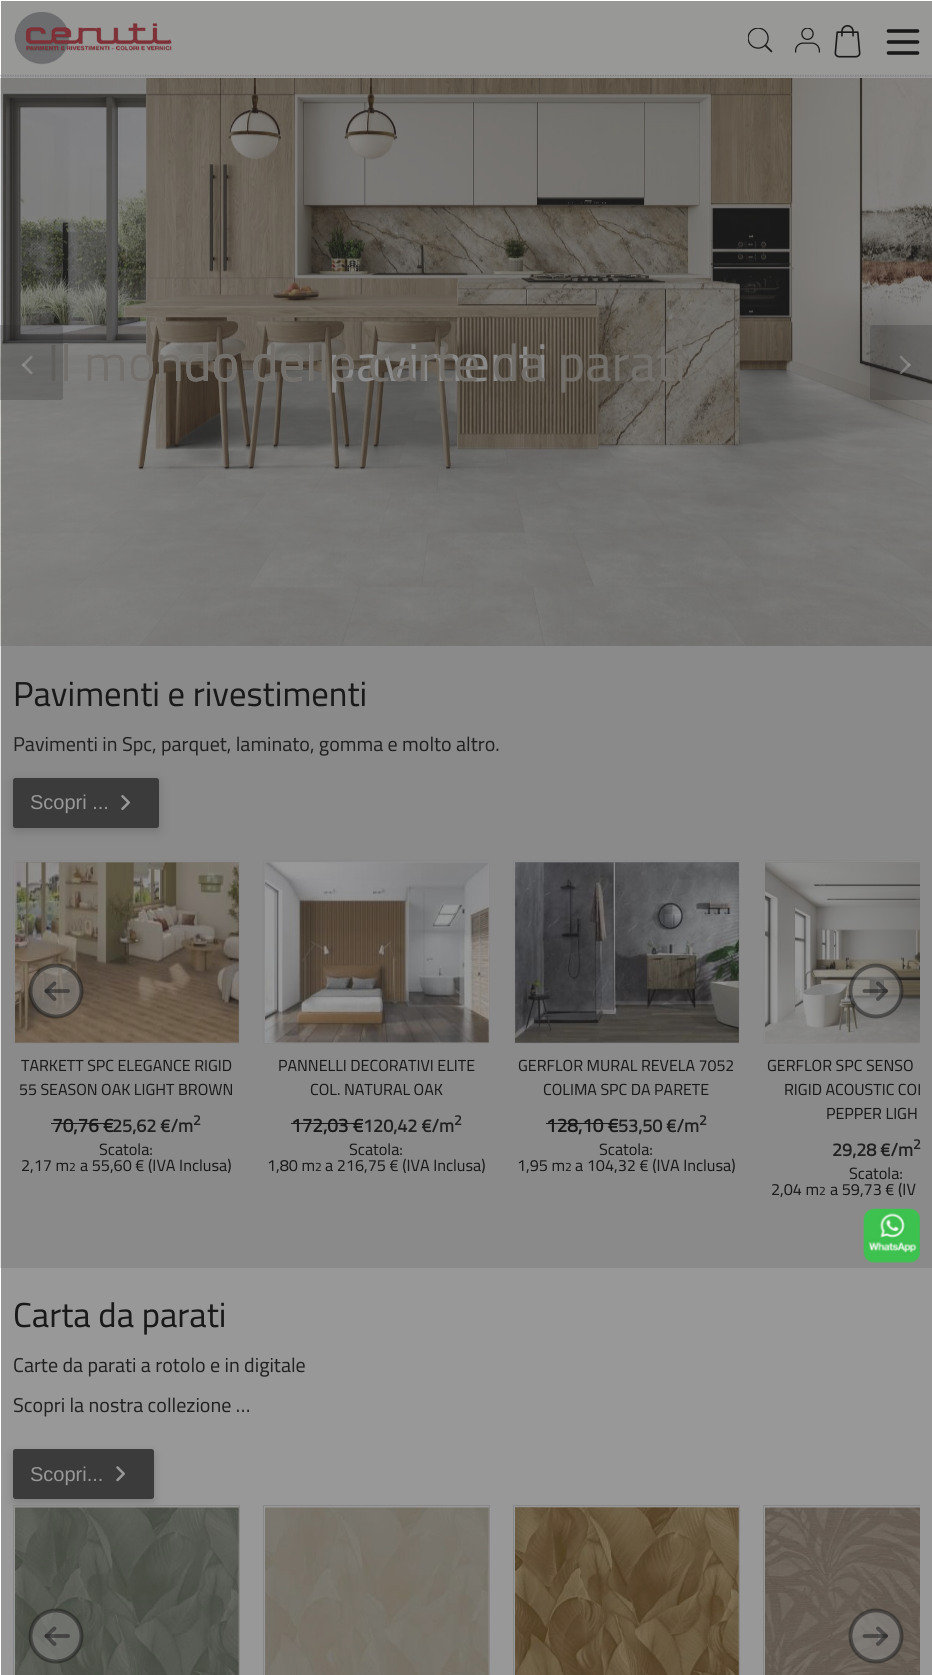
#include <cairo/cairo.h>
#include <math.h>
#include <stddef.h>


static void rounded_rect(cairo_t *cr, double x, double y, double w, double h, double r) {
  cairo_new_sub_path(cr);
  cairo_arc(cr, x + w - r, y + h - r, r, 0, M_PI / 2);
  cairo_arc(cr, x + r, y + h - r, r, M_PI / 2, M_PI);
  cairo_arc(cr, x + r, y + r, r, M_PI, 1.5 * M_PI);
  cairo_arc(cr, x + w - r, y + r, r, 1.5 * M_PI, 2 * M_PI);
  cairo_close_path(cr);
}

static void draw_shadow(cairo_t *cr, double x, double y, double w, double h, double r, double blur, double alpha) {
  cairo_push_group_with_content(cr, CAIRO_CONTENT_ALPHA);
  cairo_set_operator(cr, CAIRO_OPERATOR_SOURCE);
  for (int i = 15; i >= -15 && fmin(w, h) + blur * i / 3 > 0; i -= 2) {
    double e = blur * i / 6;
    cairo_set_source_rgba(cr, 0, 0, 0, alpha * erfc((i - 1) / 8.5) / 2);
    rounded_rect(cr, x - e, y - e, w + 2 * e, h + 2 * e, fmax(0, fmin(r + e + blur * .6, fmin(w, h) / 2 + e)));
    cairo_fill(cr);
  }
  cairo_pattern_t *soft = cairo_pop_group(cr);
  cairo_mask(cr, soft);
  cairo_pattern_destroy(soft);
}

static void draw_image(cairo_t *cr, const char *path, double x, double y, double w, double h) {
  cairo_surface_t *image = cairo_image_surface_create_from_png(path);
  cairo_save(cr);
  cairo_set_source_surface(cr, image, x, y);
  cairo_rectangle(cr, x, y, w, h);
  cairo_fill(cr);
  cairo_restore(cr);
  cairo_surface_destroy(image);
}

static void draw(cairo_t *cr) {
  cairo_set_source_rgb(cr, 1, 1, 1);
  cairo_paint(cr);
  cairo_set_source_rgb(cr, 242 / 255.0, 242 / 255.0, 242 / 255.0);
  cairo_rectangle(cr, 0, 76, 932, 1);
  cairo_fill(cr);
  cairo_set_source_rgb(cr, 1, 254 / 255.0, 252 / 255.0);
  cairo_rectangle(cr, 0, 0, 932, 76);
  cairo_fill(cr);
  cairo_new_path(cr);
  cairo_move_to(cr, 0, 75.5);
  cairo_line_to(cr, 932.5, 75.5);
  cairo_set_source_rgb(cr, 204 / 255.0, 204 / 255.0, 204 / 255.0);
  cairo_set_line_width(cr, 1.2);
  cairo_set_dash(cr, (double[]){1.25, 1.25}, 2, 0);
  cairo_stroke(cr);
  draw_image(cr, "images/1.png", 14, 12, 158, 53);
  draw_image(cr, "images/2.png", 748, 28, 25, 25);
  draw_image(cr, "images/3.png", 795, 28, 25, 25);
  draw_image(cr, "images/4.png", 834, 25, 27, 33);
  cairo_new_path(cr);
  cairo_move_to(cr, 888.5, 53);
  cairo_line_to(cr, 917.5, 53);
  cairo_move_to(cr, 888.5, 42);
  cairo_line_to(cr, 917.5, 42);
  cairo_move_to(cr, 888.5, 31);
  cairo_line_to(cr, 917.5, 31);
  cairo_set_source_rgb(cr, 0, 0, 0);
  cairo_set_line_width(cr, 3.6);
  cairo_set_line_cap(cr, CAIRO_LINE_CAP_ROUND);
  cairo_set_dash(cr, NULL, 0, 0);
  cairo_stroke(cr);
  draw_image(cr, "images/5.png", 0, 78, 932, 568);
  cairo_set_source_rgba(cr, 32 / 255.0, 32 / 255.0, 32 / 255.0, 0.24);
  cairo_new_path(cr);
  cairo_move_to(cr, 872.5, 325);
  cairo_line_to(cr, 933, 325);
  cairo_line_to(cr, 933, 400);
  cairo_line_to(cr, 872.5, 400);
  cairo_curve_to(cr, 871, 400, 870, 399, 870, 397.5);
  cairo_line_to(cr, 870, 327.5);
  cairo_curve_to(cr, 870, 326, 871, 325, 872.5, 325);
  cairo_close_path(cr);
  cairo_fill(cr);
  cairo_set_source_rgba(cr, 1, 1, 1, 0.6);
  cairo_new_path(cr);
  cairo_move_to(cr, 899.5, 357);
  cairo_line_to(cr, 901, 355.5);
  cairo_line_to(cr, 911, 365);
  cairo_line_to(cr, 909, 367);
  cairo_close_path(cr);
  cairo_fill(cr);
  cairo_new_path(cr);
  cairo_move_to(cr, 899.5, 373);
  cairo_line_to(cr, 909, 363);
  cairo_line_to(cr, 911, 365);
  cairo_line_to(cr, 901, 374.5);
  cairo_close_path(cr);
  cairo_fill(cr);
  cairo_set_source_rgb(cr, 226 / 255.0, 226 / 255.0, 226 / 255.0);
  cairo_rectangle(cr, 0, 646, 932, 622);
  cairo_fill(cr);
  cairo_set_source_rgb(cr, 0, 0, 0);
  draw_shadow(cr, 13, 781, 146, 50, 2.5, 5, 0.2);
  cairo_set_source_rgb(cr, 68 / 255.0, 68 / 255.0, 68 / 255.0);
  rounded_rect(cr, 13, 778, 146, 50, 2.5);
  cairo_fill(cr);
  draw_image(cr, "images/6.png", 121, 795, 9, 15);
  cairo_rectangle(cr, 13.5, 860.5, 226, 183);
  cairo_set_source_rgb(cr, 221 / 255.0, 221 / 255.0, 221 / 255.0);
  cairo_set_line_width(cr, 1);
  cairo_set_line_cap(cr, CAIRO_LINE_CAP_BUTT);
  cairo_stroke(cr);
  draw_image(cr, "images/7.png", 15, 862, 224, 181);
  draw_image(cr, "images/8.png", 15, 862, 224, 181);
  cairo_set_source_rgba(cr, 240 / 255.0, 240 / 255.0, 240 / 255.0, 0.5);
  cairo_arc(cr, 56, 991, 25.5, 0, 2 * M_PI);
  cairo_fill_preserve(cr);
  cairo_set_source_rgba(cr, 0, 0, 0, 0.5);
  cairo_set_line_width(cr, 3.9);
  cairo_stroke(cr);
  cairo_set_source_rgba(cr, 240 / 255.0, 240 / 255.0, 240 / 255.0, 0.5);
  cairo_new_path(cr);
  cairo_move_to(cr, 54.5, 999);
  cairo_line_to(cr, 46.5, 991);
  cairo_line_to(cr, 54.5, 983.5);
  cairo_fill_preserve(cr);
  cairo_set_source_rgba(cr, 0, 0, 0, 0.5);
  cairo_set_line_cap(cr, CAIRO_LINE_CAP_ROUND);
  cairo_set_line_join(cr, CAIRO_LINE_JOIN_ROUND);
  cairo_stroke(cr);
  cairo_new_path(cr);
  cairo_move_to(cr, 46.5, 991);
  cairo_line_to(cr, 68, 991);
  cairo_stroke(cr);
  cairo_save(cr);
  cairo_rectangle(cr, 13, 860, 907, 348);
  cairo_clip(cr);
  cairo_rectangle(cr, 763.5, 860.5, 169, 183);
  cairo_set_source_rgb(cr, 221 / 255.0, 221 / 255.0, 221 / 255.0);
  cairo_set_line_width(cr, 1);
  cairo_set_line_cap(cr, CAIRO_LINE_CAP_BUTT);
  cairo_set_line_join(cr, CAIRO_LINE_JOIN_MITER);
  cairo_stroke(cr);
  cairo_restore(cr);
  draw_image(cr, "images/13.png", 765, 862, 155, 181);
  draw_image(cr, "images/14.png", 765, 862, 155, 181);
  cairo_set_source_rgba(cr, 240 / 255.0, 240 / 255.0, 240 / 255.0, 0.5);
  cairo_arc(cr, 876, 991, 25.5, 0, 2 * M_PI);
  cairo_fill_preserve(cr);
  cairo_set_source_rgba(cr, 0, 0, 0, 0.5);
  cairo_set_line_cap(cr, CAIRO_LINE_CAP_BUTT);
  cairo_set_line_join(cr, CAIRO_LINE_JOIN_MITER);
  cairo_stroke(cr);
  cairo_set_source_rgba(cr, 240 / 255.0, 240 / 255.0, 240 / 255.0, 0.5);
  cairo_new_path(cr);
  cairo_move_to(cr, 878, 983.5);
  cairo_line_to(cr, 886, 991);
  cairo_line_to(cr, 878, 999);
  cairo_fill_preserve(cr);
  cairo_set_source_rgba(cr, 0, 0, 0, 0.5);
  cairo_set_line_cap(cr, CAIRO_LINE_CAP_ROUND);
  cairo_set_line_join(cr, CAIRO_LINE_JOIN_ROUND);
  cairo_stroke(cr);
  cairo_new_path(cr);
  cairo_move_to(cr, 886, 991);
  cairo_line_to(cr, 864.5, 991);
  cairo_stroke(cr);
  cairo_set_source_rgb(cr, 0, 0, 0);
  cairo_rectangle(cr, 51, 1123, 62, 1);
  cairo_fill(cr);
  cairo_rectangle(cr, 263.5, 860.5, 226, 183);
  cairo_set_source_rgb(cr, 221 / 255.0, 221 / 255.0, 221 / 255.0);
  cairo_set_line_width(cr, 1);
  cairo_set_line_cap(cr, CAIRO_LINE_CAP_BUTT);
  cairo_set_line_join(cr, CAIRO_LINE_JOIN_MITER);
  cairo_stroke(cr);
  draw_image(cr, "images/9.png", 265, 862, 224, 181);
  draw_image(cr, "images/10.png", 265, 862, 224, 181);
  cairo_set_source_rgb(cr, 0, 0, 0);
  cairo_rectangle(cr, 291, 1123, 72, 1);
  cairo_fill(cr);
  cairo_rectangle(cr, 513.5, 860.5, 226, 183);
  cairo_set_source_rgb(cr, 221 / 255.0, 221 / 255.0, 221 / 255.0);
  cairo_stroke(cr);
  draw_image(cr, "images/11.png", 515, 862, 224, 181);
  draw_image(cr, "images/12.png", 515, 862, 224, 181);
  cairo_set_source_rgb(cr, 0, 0, 0);
  cairo_rectangle(cr, 546, 1123, 72, 1);
  cairo_fill(cr);
  cairo_set_source_rgb(cr, 0, 0, 0);
  draw_shadow(cr, 13, 1453, 141, 50, 2.5, 5, 0.2);
  cairo_set_source_rgb(cr, 68 / 255.0, 68 / 255.0, 68 / 255.0);
  rounded_rect(cr, 13, 1449, 141, 50, 2.5);
  cairo_fill(cr);
  draw_image(cr, "images/15.png", 116, 1466, 9, 16);
  cairo_rectangle(cr, 13.5, 1505.5, 226, 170);
  cairo_set_source_rgb(cr, 221 / 255.0, 221 / 255.0, 221 / 255.0);
  cairo_stroke(cr);
  draw_image(cr, "images/16.png", 15, 1507, 224, 168);
  cairo_rectangle(cr, 263.5, 1505.5, 226, 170);
  cairo_stroke(cr);
  draw_image(cr, "images/17.png", 265, 1507, 224, 168);
  cairo_rectangle(cr, 513.5, 1505.5, 226, 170);
  cairo_stroke(cr);
  draw_image(cr, "images/18.png", 515, 1507, 224, 168);
  draw_image(cr, "images/19.png", 515, 1507, 224, 168);
  cairo_save(cr);
  cairo_rectangle(cr, 13, 1505, 907, 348);
  cairo_clip(cr);
  cairo_rectangle(cr, 763.5, 1505.5, 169, 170);
  cairo_stroke(cr);
  cairo_restore(cr);
  draw_image(cr, "images/20.png", 765, 1507, 155, 168);
  cairo_set_source_rgba(cr, 240 / 255.0, 240 / 255.0, 240 / 255.0, 0.5);
  cairo_arc(cr, 56, 1636, 25.5, 0, 2 * M_PI);
  cairo_fill_preserve(cr);
  cairo_set_source_rgba(cr, 0, 0, 0, 0.5);
  cairo_set_line_width(cr, 3.9);
  cairo_stroke(cr);
  cairo_set_source_rgba(cr, 240 / 255.0, 240 / 255.0, 240 / 255.0, 0.5);
  cairo_new_path(cr);
  cairo_move_to(cr, 54.5, 1644);
  cairo_line_to(cr, 46.5, 1636);
  cairo_line_to(cr, 54.5, 1628.5);
  cairo_fill_preserve(cr);
  cairo_set_source_rgba(cr, 0, 0, 0, 0.5);
  cairo_set_line_cap(cr, CAIRO_LINE_CAP_ROUND);
  cairo_set_line_join(cr, CAIRO_LINE_JOIN_ROUND);
  cairo_stroke(cr);
  cairo_new_path(cr);
  cairo_move_to(cr, 46.5, 1636);
  cairo_line_to(cr, 68, 1636);
  cairo_stroke(cr);
  cairo_set_source_rgba(cr, 240 / 255.0, 240 / 255.0, 240 / 255.0, 0.5);
  cairo_arc(cr, 876, 1636, 25.5, 0, 2 * M_PI);
  cairo_fill_preserve(cr);
  cairo_set_source_rgba(cr, 0, 0, 0, 0.5);
  cairo_set_line_cap(cr, CAIRO_LINE_CAP_BUTT);
  cairo_set_line_join(cr, CAIRO_LINE_JOIN_MITER);
  cairo_stroke(cr);
  cairo_set_source_rgba(cr, 240 / 255.0, 240 / 255.0, 240 / 255.0, 0.5);
  cairo_new_path(cr);
  cairo_move_to(cr, 878, 1628.5);
  cairo_line_to(cr, 886, 1636);
  cairo_line_to(cr, 878, 1644);
  cairo_fill_preserve(cr);
  cairo_set_source_rgba(cr, 0, 0, 0, 0.5);
  cairo_set_line_cap(cr, CAIRO_LINE_CAP_ROUND);
  cairo_set_line_join(cr, CAIRO_LINE_JOIN_ROUND);
  cairo_stroke(cr);
  cairo_new_path(cr);
  cairo_move_to(cr, 886, 1636);
  cairo_line_to(cr, 864.5, 1636);
  cairo_stroke(cr);
  cairo_select_font_face(cr, "Cairo", CAIRO_FONT_SLANT_NORMAL, CAIRO_FONT_WEIGHT_NORMAL);
  cairo_set_font_size(cr, 52.5);
  cairo_set_source_rgb(cr, 226 / 255.0, 226 / 255.0, 226 / 255.0);
  cairo_move_to(cr, 47, 381);
  cairo_show_text(cr, "Il mondo dei pavimenti");
  cairo_set_source_rgb(cr, 179 / 255.0, 173 / 255.0, 165 / 255.0);
  cairo_move_to(cr, 47, 381);
  cairo_show_text(cr, "Il mondo delle carte da parati");
  cairo_set_source_rgba(cr, 32 / 255.0, 32 / 255.0, 32 / 255.0, 0.24);
  cairo_new_path(cr);
  cairo_move_to(cr, 0, 325);
  cairo_line_to(cr, 60.5, 325);
  cairo_curve_to(cr, 62, 325, 63, 326, 63, 327.5);
  cairo_line_to(cr, 63, 397.5);
  cairo_curve_to(cr, 63, 399, 62, 400, 60.5, 400);
  cairo_line_to(cr, 0, 400);
  cairo_close_path(cr);
  cairo_fill(cr);
  cairo_set_source_rgba(cr, 1, 1, 1, 0.6);
  cairo_new_path(cr);
  cairo_move_to(cr, 33, 373);
  cairo_line_to(cr, 31, 374.5);
  cairo_line_to(cr, 21.5, 365);
  cairo_line_to(cr, 23.5, 363);
  cairo_close_path(cr);
  cairo_fill(cr);
  cairo_new_path(cr);
  cairo_move_to(cr, 33, 357);
  cairo_line_to(cr, 23.5, 367);
  cairo_line_to(cr, 21.5, 365);
  cairo_line_to(cr, 31, 355.5);
  cairo_close_path(cr);
  cairo_fill(cr);
  cairo_set_font_size(cr, 34.6);
  cairo_set_source_rgb(cr, 0, 0, 0);
  cairo_move_to(cr, 13, 706);
  cairo_show_text(cr, "Pavimenti e rivestimenti");
  cairo_set_font_size(cr, 20);
  cairo_set_source_rgb(cr, 17 / 255.0, 17 / 255.0, 17 / 255.0);
  cairo_move_to(cr, 13, 751);
  cairo_show_text(cr, "Pavimenti in Spc, parquet, laminato, gomma e molto altro.");
  cairo_select_font_face(cr, "Liberation Sans", CAIRO_FONT_SLANT_NORMAL, CAIRO_FONT_WEIGHT_NORMAL);
  cairo_set_source_rgb(cr, 1, 1, 1);
  cairo_move_to(cr, 30, 809);
  cairo_show_text(cr, "Scopri ...");
  cairo_select_font_face(cr, "Cairo", CAIRO_FONT_SLANT_NORMAL, CAIRO_FONT_WEIGHT_NORMAL);
  cairo_set_font_size(cr, 16);
  cairo_set_source_rgb(cr, 0, 0, 0);
  cairo_move_to(cr, 21, 1071);
  cairo_show_text(cr, "TARKETT SPC ELEGANCE RIGID");
  cairo_move_to(cr, 19, 1095);
  cairo_show_text(cr, "55 SEASON OAK LIGHT BROWN");
  cairo_select_font_face(cr, "Cairo", CAIRO_FONT_SLANT_NORMAL, CAIRO_FONT_WEIGHT_BOLD);
  cairo_set_font_size(cr, 19);
  cairo_move_to(cr, 52, 1132);
  cairo_show_text(cr, "70,76 €");
  cairo_set_font_size(cr, 18);
  cairo_set_source_rgb(cr, 17 / 255.0, 17 / 255.0, 17 / 255.0);
  cairo_move_to(cr, 112, 1132);
  cairo_show_text(cr, "25,62 €/m");
  cairo_set_font_size(cr, 14);
  cairo_move_to(cr, 193, 1125);
  cairo_show_text(cr, "2");
  cairo_select_font_face(cr, "Cairo", CAIRO_FONT_SLANT_NORMAL, CAIRO_FONT_WEIGHT_NORMAL);
  cairo_set_font_size(cr, 16.25);
  cairo_set_source_rgb(cr, 0, 0, 0);
  cairo_move_to(cr, 99, 1155);
  cairo_show_text(cr, "Scatola:");
  cairo_move_to(cr, 21, 1171);
  cairo_show_text(cr, "2,17 m");
  cairo_set_font_size(cr, 12);
  cairo_move_to(cr, 69, 1171);
  cairo_show_text(cr, "2");
  cairo_set_font_size(cr, 16.25);
  cairo_move_to(cr, 80, 1171);
  cairo_show_text(cr, "a 55,60 € (IVA Inclusa)");
  cairo_set_font_size(cr, 16);
  cairo_move_to(cr, 278, 1071);
  cairo_show_text(cr, "PANNELLI DECORATIVI ELITE");
  cairo_move_to(cr, 310, 1095);
  cairo_show_text(cr, "COL. NATURAL OAK");
  cairo_select_font_face(cr, "Cairo", CAIRO_FONT_SLANT_NORMAL, CAIRO_FONT_WEIGHT_BOLD);
  cairo_set_font_size(cr, 19);
  cairo_move_to(cr, 291, 1132);
  cairo_show_text(cr, "172,03 €");
  cairo_set_font_size(cr, 18);
  cairo_set_source_rgb(cr, 17 / 255.0, 17 / 255.0, 17 / 255.0);
  cairo_move_to(cr, 363, 1132);
  cairo_show_text(cr, "120,42 €/m");
  cairo_set_font_size(cr, 14);
  cairo_move_to(cr, 454, 1125);
  cairo_show_text(cr, "2");
  cairo_select_font_face(cr, "Cairo", CAIRO_FONT_SLANT_NORMAL, CAIRO_FONT_WEIGHT_NORMAL);
  cairo_set_font_size(cr, 16.25);
  cairo_set_source_rgb(cr, 0, 0, 0);
  cairo_move_to(cr, 349, 1155);
  cairo_show_text(cr, "Scatola:");
  cairo_move_to(cr, 267, 1171);
  cairo_show_text(cr, "1,80 m");
  cairo_set_font_size(cr, 12);
  cairo_move_to(cr, 315, 1171);
  cairo_show_text(cr, "2");
  cairo_set_font_size(cr, 16.25);
  cairo_move_to(cr, 325, 1171);
  cairo_show_text(cr, "a 216,75 € (IVA Inclusa)");
  cairo_set_font_size(cr, 16);
  cairo_move_to(cr, 518, 1071);
  cairo_show_text(cr, "GERFLOR MURAL REVELA 7052");
  cairo_move_to(cr, 543, 1095);
  cairo_show_text(cr, "COLIMA SPC DA PARETE");
  cairo_select_font_face(cr, "Cairo", CAIRO_FONT_SLANT_NORMAL, CAIRO_FONT_WEIGHT_BOLD);
  cairo_set_font_size(cr, 19);
  cairo_move_to(cr, 546, 1132);
  cairo_show_text(cr, "128,10 €");
  cairo_set_font_size(cr, 18);
  cairo_set_source_rgb(cr, 17 / 255.0, 17 / 255.0, 17 / 255.0);
  cairo_move_to(cr, 618, 1132);
  cairo_show_text(cr, "53,50 €/m");
  cairo_set_font_size(cr, 14);
  cairo_move_to(cr, 699, 1125);
  cairo_show_text(cr, "2");
  cairo_select_font_face(cr, "Cairo", CAIRO_FONT_SLANT_NORMAL, CAIRO_FONT_WEIGHT_NORMAL);
  cairo_set_font_size(cr, 16.25);
  cairo_set_source_rgb(cr, 0, 0, 0);
  cairo_move_to(cr, 599, 1155);
  cairo_show_text(cr, "Scatola:");
  cairo_move_to(cr, 517, 1171);
  cairo_show_text(cr, "1,95 m");
  cairo_set_font_size(cr, 12);
  cairo_move_to(cr, 565, 1171);
  cairo_show_text(cr, "2");
  cairo_set_font_size(cr, 16.25);
  cairo_move_to(cr, 575, 1171);
  cairo_show_text(cr, "a 104,32 € (IVA Inclusa)");
  cairo_set_font_size(cr, 16);
  cairo_move_to(cr, 767, 1071);
  cairo_show_text(cr, "GERFLOR SPC SENSO");
  cairo_save(cr);
  cairo_rectangle(cr, 763, 1054, 157, 71);
  cairo_clip(cr);
  cairo_move_to(cr, 784, 1095);
  cairo_show_text(cr, "RIGID ACOUSTIC COL");
  cairo_restore(cr);
  cairo_move_to(cr, 826, 1119);
  cairo_show_text(cr, "PEPPER LIGH");
  cairo_select_font_face(cr, "Cairo", CAIRO_FONT_SLANT_NORMAL, CAIRO_FONT_WEIGHT_BOLD);
  cairo_set_font_size(cr, 18);
  cairo_set_source_rgb(cr, 17 / 255.0, 17 / 255.0, 17 / 255.0);
  cairo_move_to(cr, 832, 1156);
  cairo_show_text(cr, "29,28 €/m");
  cairo_set_font_size(cr, 14);
  cairo_move_to(cr, 913, 1149);
  cairo_show_text(cr, "2");
  cairo_select_font_face(cr, "Cairo", CAIRO_FONT_SLANT_NORMAL, CAIRO_FONT_WEIGHT_NORMAL);
  cairo_set_font_size(cr, 16.25);
  cairo_set_source_rgb(cr, 0, 0, 0);
  cairo_move_to(cr, 849, 1179);
  cairo_show_text(cr, "Scatola:");
  cairo_move_to(cr, 771, 1195);
  cairo_show_text(cr, "2,04 m");
  cairo_set_font_size(cr, 12);
  cairo_move_to(cr, 819, 1195);
  cairo_show_text(cr, "2");
  cairo_set_font_size(cr, 16.25);
  cairo_move_to(cr, 830, 1195);
  cairo_show_text(cr, "a 59,73 € (IV");
  cairo_set_font_size(cr, 34.6);
  cairo_move_to(cr, 13, 1327);
  cairo_show_text(cr, "Carta da parati");
  cairo_set_font_size(cr, 20);
  cairo_set_source_rgb(cr, 17 / 255.0, 17 / 255.0, 17 / 255.0);
  cairo_move_to(cr, 13, 1372);
  cairo_show_text(cr, "Carte da parati a rotolo e in digitale");
  cairo_move_to(cr, 13, 1412);
  cairo_show_text(cr, "Scopri la nostra collezione …");
  cairo_select_font_face(cr, "Liberation Sans", CAIRO_FONT_SLANT_NORMAL, CAIRO_FONT_WEIGHT_NORMAL);
  cairo_set_source_rgb(cr, 1, 1, 1);
  cairo_move_to(cr, 30, 1481);
  cairo_show_text(cr, "Scopri...");
  cairo_set_source_rgba(cr, 51 / 255.0, 51 / 255.0, 51 / 255.0, 0.5);
  cairo_rectangle(cr, 1, 1, 931, 1674);
  cairo_fill(cr);
  draw_image(cr, "images/21.png", 863, 1208, 57, 55);
}

int main(void) {
  cairo_surface_t *surface = cairo_image_surface_create(CAIRO_FORMAT_RGB24, 932, 1675);
  cairo_t *cr = cairo_create(surface);
  cairo_font_options_t *options = cairo_font_options_create();
  cairo_font_options_set_hint_metrics(options, CAIRO_HINT_METRICS_OFF);
  cairo_font_options_set_hint_style(options, CAIRO_HINT_STYLE_NONE);
  cairo_set_font_options(cr, options);
  cairo_set_miter_limit(cr, 4);
  draw(cr);
  cairo_surface_write_to_png(surface, "out.png");
  cairo_font_options_destroy(options);
  cairo_destroy(cr);
  cairo_surface_destroy(surface);
  return 0;
}
